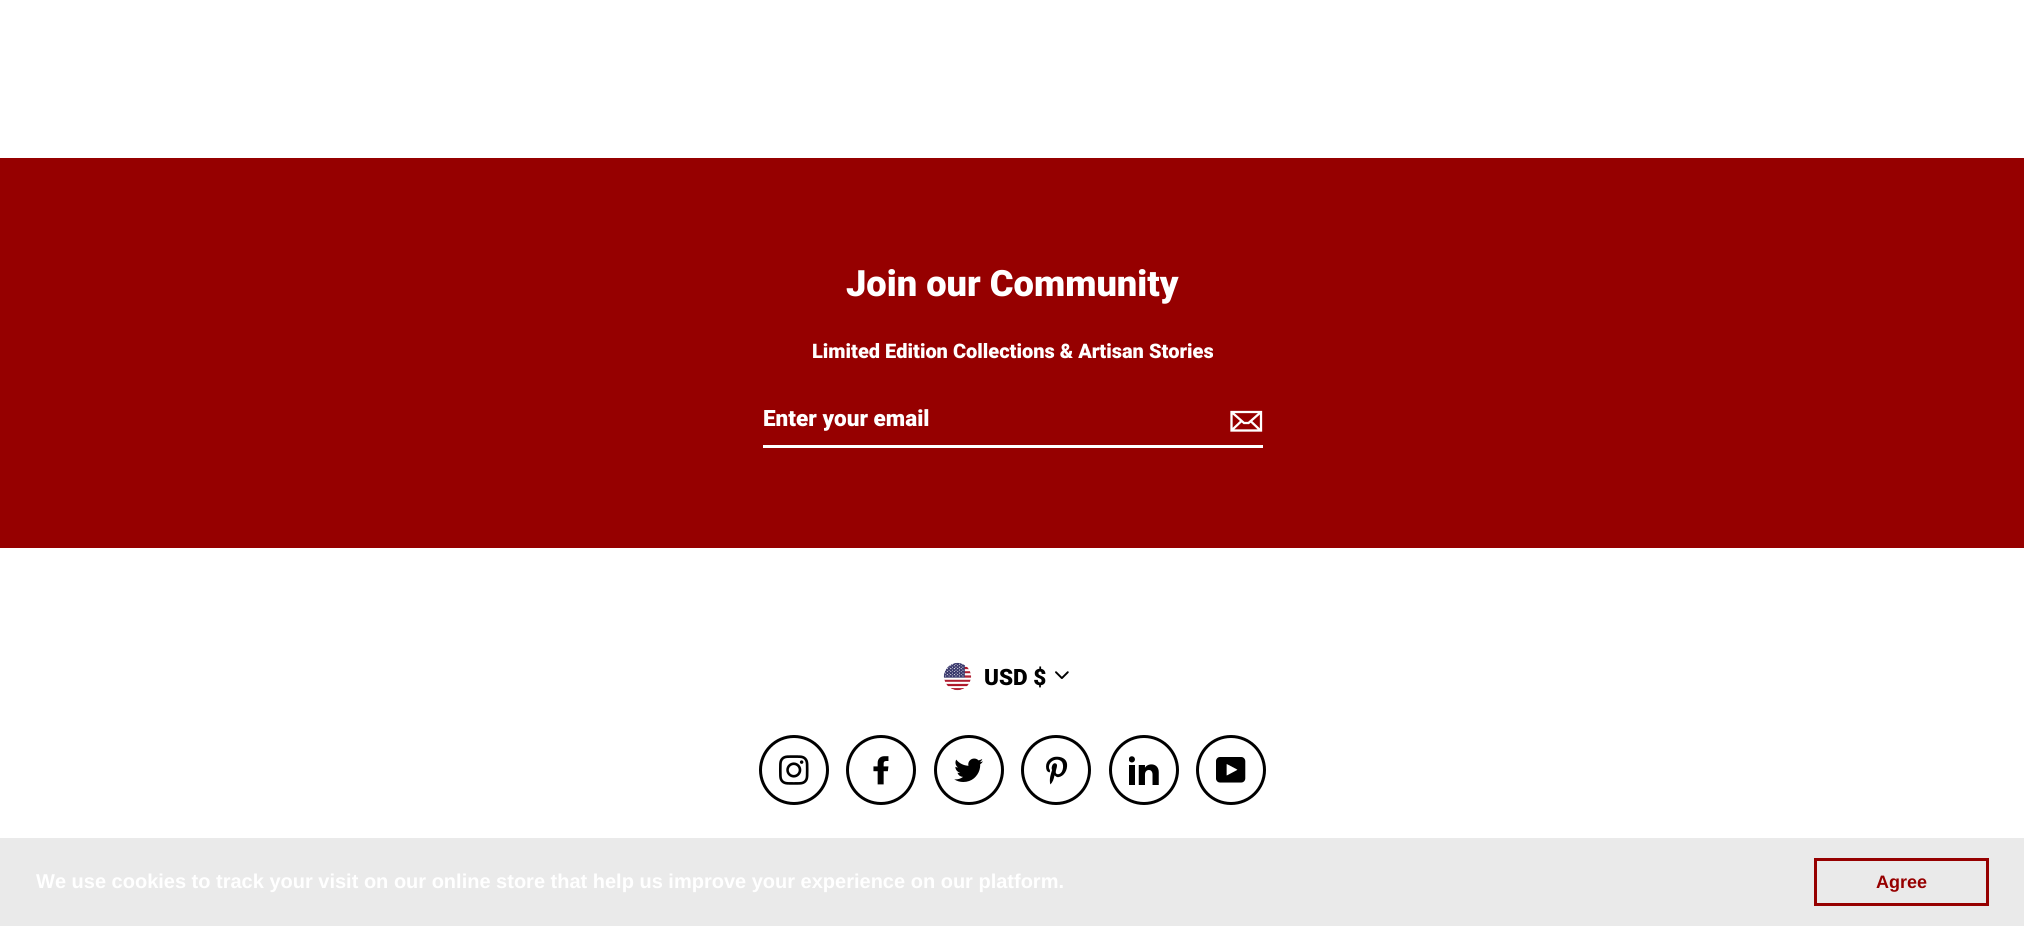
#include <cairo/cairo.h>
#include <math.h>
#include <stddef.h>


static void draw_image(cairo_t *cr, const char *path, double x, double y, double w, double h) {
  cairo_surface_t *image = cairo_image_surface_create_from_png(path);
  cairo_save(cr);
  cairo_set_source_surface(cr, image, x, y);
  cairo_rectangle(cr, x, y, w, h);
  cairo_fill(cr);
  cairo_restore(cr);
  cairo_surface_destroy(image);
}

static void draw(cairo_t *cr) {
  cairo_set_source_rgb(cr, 1, 1, 1);
  cairo_paint(cr);
  cairo_set_source_rgb(cr, 150 / 255.0, 0, 0);
  cairo_rectangle(cr, 0, 158, 2024, 390);
  cairo_fill(cr);
  cairo_set_source_rgb(cr, 1, 1, 1);
  cairo_rectangle(cr, 763, 445, 500, 3);
  cairo_fill(cr);
  cairo_new_path(cr);
  cairo_move_to(cr, 1261, 430.5);
  cairo_line_to(cr, 1231.5, 430.5);
  cairo_line_to(cr, 1231.5, 412);
  cairo_line_to(cr, 1261, 412);
  cairo_close_path(cr);
  cairo_move_to(cr, 1231.5, 412);
  cairo_line_to(cr, 1244, 423);
  cairo_line_to(cr, 1248.5, 423);
  cairo_line_to(cr, 1261, 412);
  cairo_move_to(cr, 1241.5, 421);
  cairo_line_to(cr, 1232, 430);
  cairo_move_to(cr, 1260.5, 430.5);
  cairo_line_to(cr, 1250.5, 421);
  cairo_set_line_width(cr, 2.3);
  cairo_stroke(cr);
  draw_image(cr, "images/1.png", 1055, 671, 14, 8);
  draw_image(cr, "images/2.png", 943, 662, 29, 29);
  cairo_arc(cr, 794, 770, 33.5, 0, 2 * M_PI);
  cairo_set_source_rgb(cr, 0, 0, 0);
  cairo_set_line_width(cr, 3);
  cairo_stroke(cr);
  draw_image(cr, "images/3.png", 779, 755, 30, 30);
  cairo_arc(cr, 881, 770, 33.5, 0, 2 * M_PI);
  cairo_stroke(cr);
  draw_image(cr, "images/4.png", 873, 756, 16, 29);
  cairo_arc(cr, 969, 770, 33.5, 0, 2 * M_PI);
  cairo_stroke(cr);
  draw_image(cr, "images/5.png", 954, 758, 29, 24);
  cairo_arc(cr, 1056, 770, 33.5, 0, 2 * M_PI);
  cairo_stroke(cr);
  draw_image(cr, "images/6.png", 1046, 756, 22, 29);
  cairo_arc(cr, 1144, 770, 33.5, 0, 2 * M_PI);
  cairo_stroke(cr);
  draw_image(cr, "images/7.png", 1129, 756, 30, 29);
  cairo_arc(cr, 1231, 770, 33.5, 0, 2 * M_PI);
  cairo_stroke(cr);
  draw_image(cr, "images/8.png", 1216, 757, 30, 26);
  cairo_set_source_rgb(cr, 234 / 255.0, 234 / 255.0, 234 / 255.0);
  cairo_rectangle(cr, 0, 838, 2024, 88);
  cairo_fill(cr);
  cairo_rectangle(cr, 1815.5, 859.5, 172, 45);
  cairo_set_source_rgb(cr, 150 / 255.0, 0, 0);
  cairo_stroke(cr);
  cairo_select_font_face(cr, "Roboto Black", CAIRO_FONT_SLANT_NORMAL, CAIRO_FONT_WEIGHT_NORMAL);
  cairo_set_font_size(cr, 36.25);
  cairo_set_source_rgb(cr, 1, 1, 1);
  cairo_move_to(cr, 846, 296);
  cairo_show_text(cr, "Join our Community");
  cairo_set_font_size(cr, 20);
  cairo_move_to(cr, 812, 358);
  cairo_show_text(cr, "Limited Edition Collections & Artisan Stories");
  cairo_set_font_size(cr, 22.5);
  cairo_move_to(cr, 763, 426);
  cairo_show_text(cr, "Enter your email");
  cairo_set_source_rgb(cr, 0, 0, 0);
  cairo_move_to(cr, 984, 685);
  cairo_show_text(cr, "USD $");
  cairo_select_font_face(cr, "Liberation Sans", CAIRO_FONT_SLANT_NORMAL, CAIRO_FONT_WEIGHT_BOLD);
  cairo_set_font_size(cr, 20);
  cairo_set_source_rgb(cr, 1, 1, 1);
  cairo_move_to(cr, 36, 888);
  cairo_show_text(cr, "We use cookies to track your visit on our online store that help us improve your experience on our platform.");
  cairo_set_font_size(cr, 18);
  cairo_set_source_rgb(cr, 150 / 255.0, 0, 0);
  cairo_move_to(cr, 1876, 888);
  cairo_show_text(cr, "Agree");
}

int main(void) {
  cairo_surface_t *surface = cairo_image_surface_create(CAIRO_FORMAT_RGB24, 2024, 926);
  cairo_t *cr = cairo_create(surface);
  cairo_font_options_t *options = cairo_font_options_create();
  cairo_font_options_set_hint_metrics(options, CAIRO_HINT_METRICS_OFF);
  cairo_font_options_set_hint_style(options, CAIRO_HINT_STYLE_NONE);
  cairo_set_font_options(cr, options);
  cairo_set_miter_limit(cr, 4);
  draw(cr);
  cairo_surface_write_to_png(surface, "out.png");
  cairo_font_options_destroy(options);
  cairo_destroy(cr);
  cairo_surface_destroy(surface);
  return 0;
}
